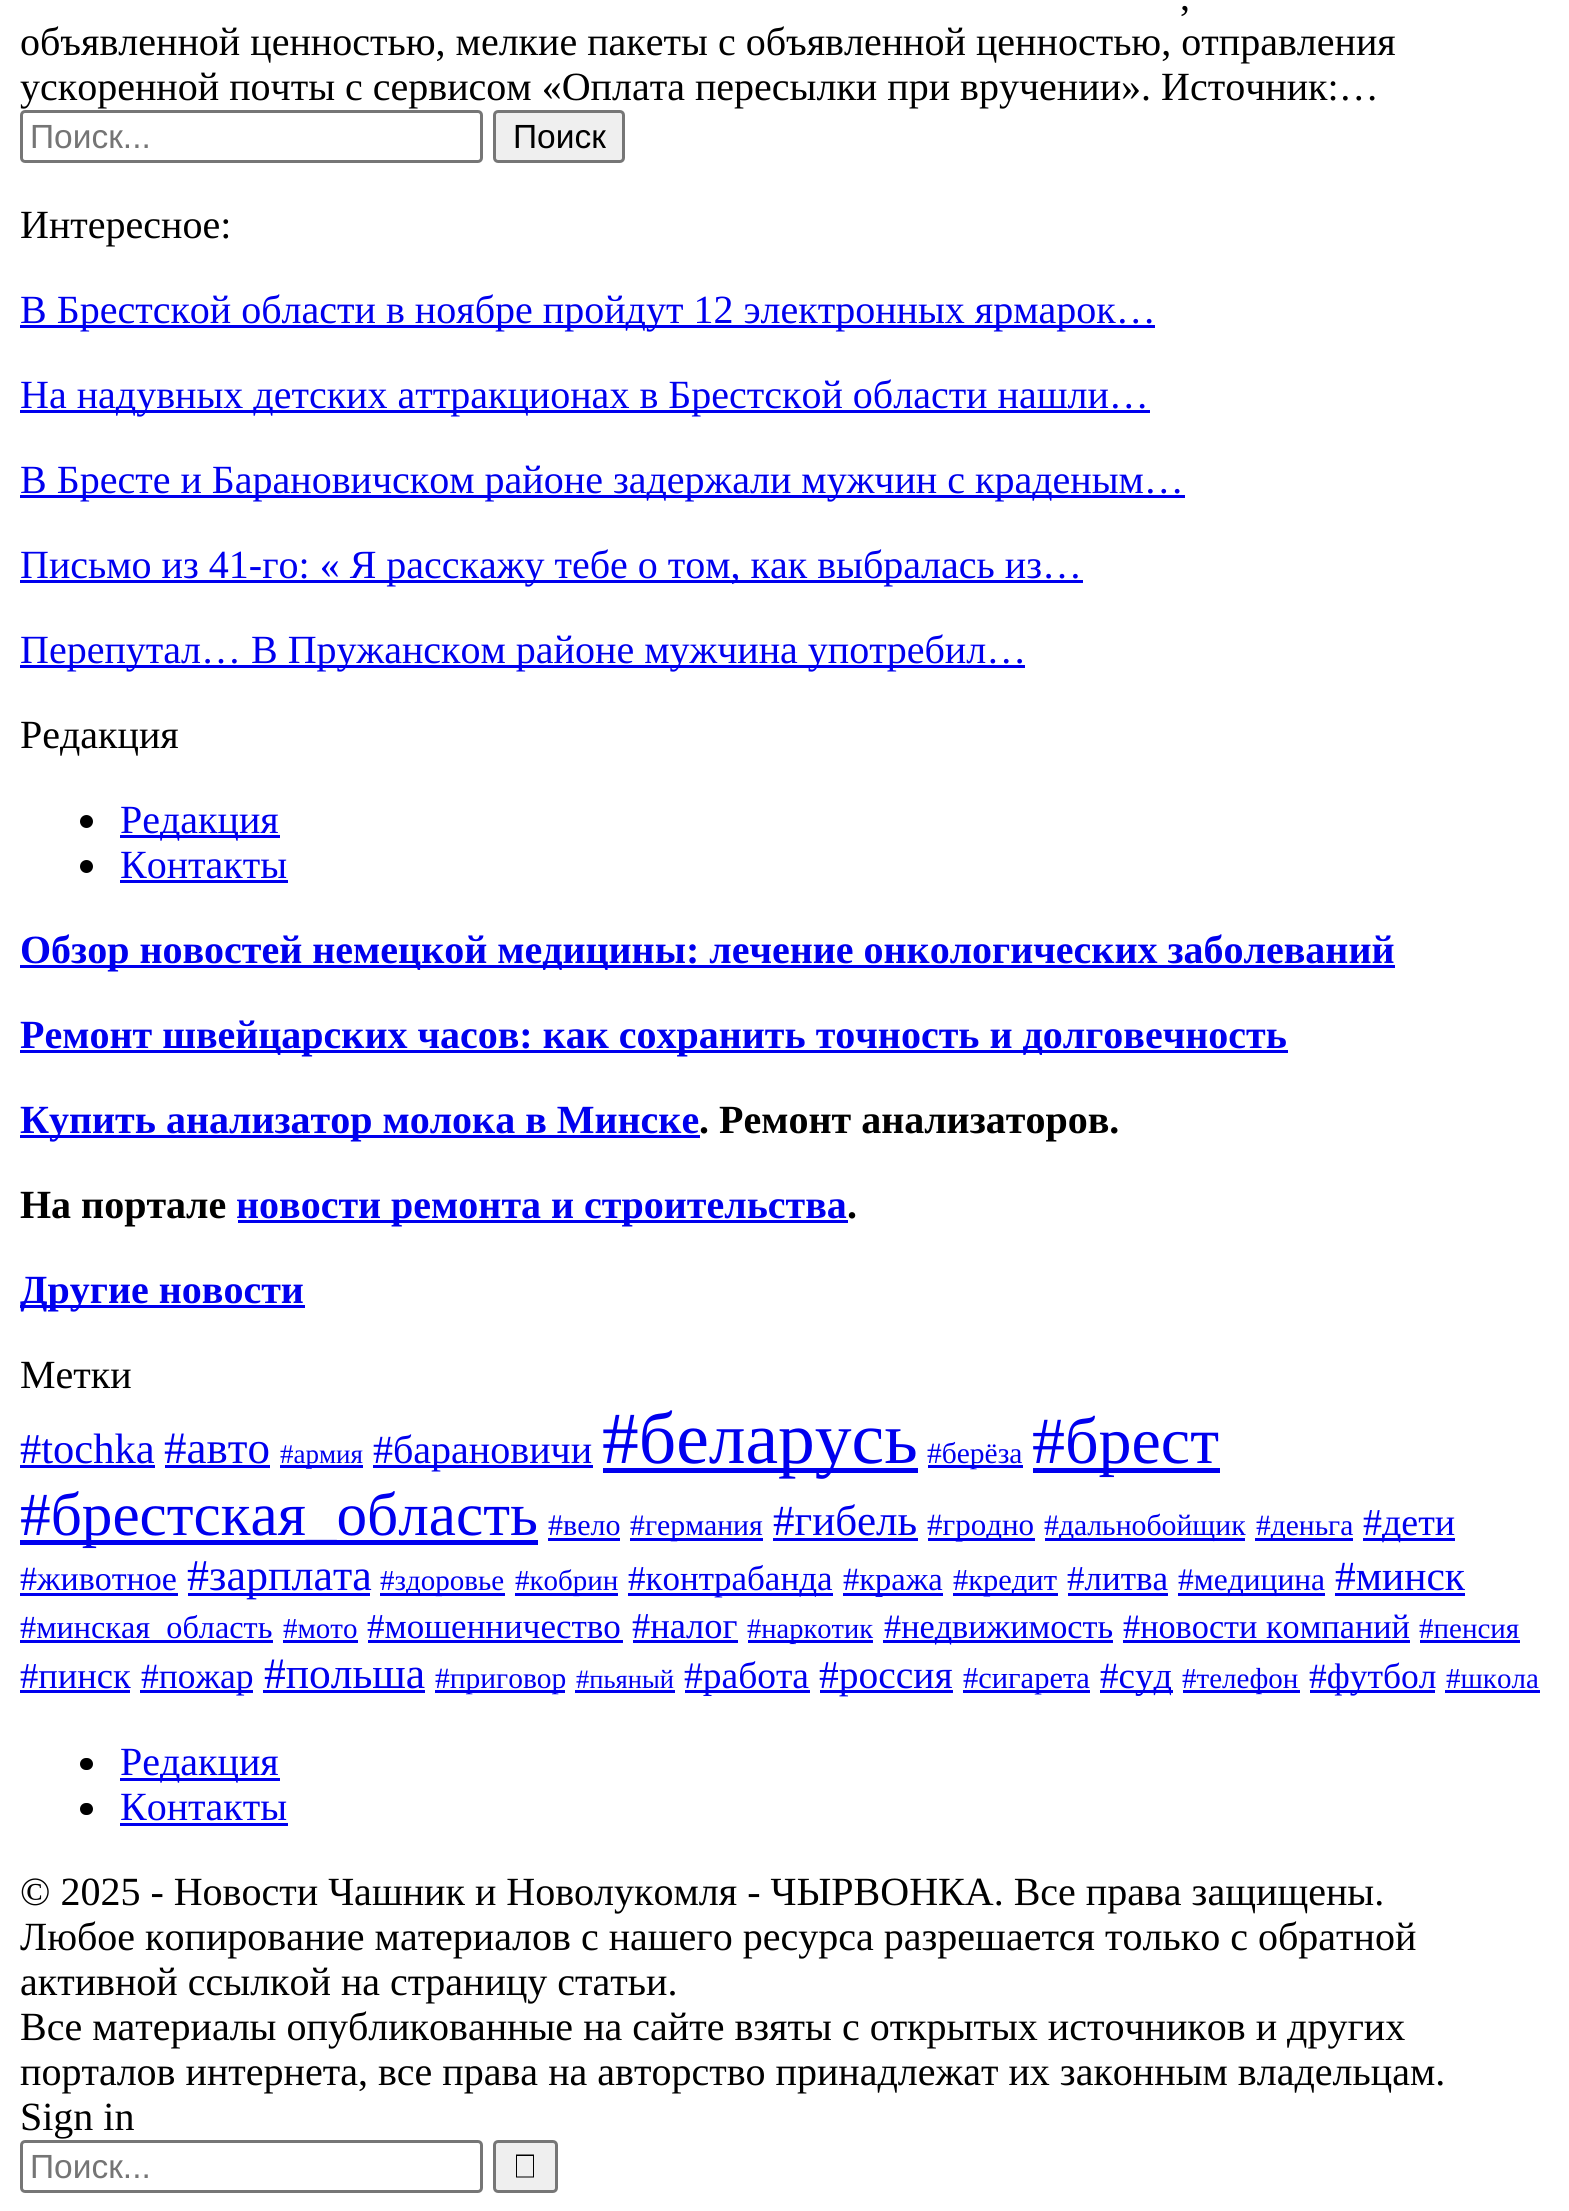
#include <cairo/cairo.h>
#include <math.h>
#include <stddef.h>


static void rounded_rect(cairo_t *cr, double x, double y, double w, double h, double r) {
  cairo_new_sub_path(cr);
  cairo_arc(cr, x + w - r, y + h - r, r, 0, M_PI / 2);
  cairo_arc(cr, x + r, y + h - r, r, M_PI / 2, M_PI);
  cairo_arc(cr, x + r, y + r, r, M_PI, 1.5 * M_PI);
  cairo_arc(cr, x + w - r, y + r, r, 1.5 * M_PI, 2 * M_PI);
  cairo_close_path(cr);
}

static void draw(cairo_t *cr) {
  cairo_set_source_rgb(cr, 1, 1, 1);
  cairo_paint(cr);
  rounded_rect(cr, 21.5, 111.5, 460, 50, 3.5);
  cairo_set_source_rgb(cr, 118 / 255.0, 118 / 255.0, 118 / 255.0);
  cairo_set_line_width(cr, 3);
  cairo_stroke(cr);
  cairo_set_source_rgb(cr, 239 / 255.0, 239 / 255.0, 239 / 255.0);
  rounded_rect(cr, 494.5, 111.5, 129, 50, 3.5);
  cairo_fill_preserve(cr);
  cairo_set_source_rgb(cr, 118 / 255.0, 118 / 255.0, 118 / 255.0);
  cairo_stroke(cr);
  cairo_set_source_rgb(cr, 0, 0, 238 / 255.0);
  cairo_rectangle(cr, 20, 325, 1135, 3);
  cairo_fill(cr);
  cairo_rectangle(cr, 20, 410, 1130, 3);
  cairo_fill(cr);
  cairo_rectangle(cr, 20, 495, 1165, 3);
  cairo_fill(cr);
  cairo_rectangle(cr, 20, 580, 1063, 3);
  cairo_fill(cr);
  cairo_rectangle(cr, 20, 665, 1005, 3);
  cairo_fill(cr);
  cairo_set_source_rgb(cr, 0, 0, 0);
  cairo_arc(cr, 86.5, 821.5, 6.5, 0, 2 * M_PI);
  cairo_fill(cr);
  cairo_set_source_rgb(cr, 0, 0, 238 / 255.0);
  cairo_rectangle(cr, 120, 835, 160, 3);
  cairo_fill(cr);
  cairo_set_source_rgb(cr, 0, 0, 0);
  cairo_arc(cr, 86.5, 866.5, 6.5, 0, 2 * M_PI);
  cairo_fill(cr);
  cairo_set_source_rgb(cr, 0, 0, 238 / 255.0);
  cairo_rectangle(cr, 120, 880, 168, 3);
  cairo_fill(cr);
  cairo_rectangle(cr, 20, 965, 1375, 3);
  cairo_fill(cr);
  cairo_rectangle(cr, 20, 1050, 1268, 3);
  cairo_fill(cr);
  cairo_rectangle(cr, 20, 1135, 680, 3);
  cairo_fill(cr);
  cairo_rectangle(cr, 238, 1220, 610, 3);
  cairo_fill(cr);
  cairo_rectangle(cr, 20, 1305, 285, 3);
  cairo_fill(cr);
  cairo_rectangle(cr, 20, 1465, 135, 3);
  cairo_fill(cr);
  cairo_rectangle(cr, 165, 1465, 105, 3);
  cairo_fill(cr);
  cairo_rectangle(cr, 280, 1465, 83, 3);
  cairo_fill(cr);
  cairo_rectangle(cr, 373, 1465, 220, 3);
  cairo_fill(cr);
  cairo_rectangle(cr, 603, 1468, 315, 5);
  cairo_fill(cr);
  cairo_rectangle(cr, 928, 1465, 95, 3);
  cairo_fill(cr);
  cairo_rectangle(cr, 1033, 1468, 187, 5);
  cairo_fill(cr);
  cairo_rectangle(cr, 20, 1540, 518, 5);
  cairo_fill(cr);
  cairo_rectangle(cr, 548, 1538, 72, 3);
  cairo_fill(cr);
  cairo_rectangle(cr, 630, 1538, 133, 3);
  cairo_fill(cr);
  cairo_rectangle(cr, 773, 1538, 145, 3);
  cairo_fill(cr);
  cairo_rectangle(cr, 928, 1538, 107, 3);
  cairo_fill(cr);
  cairo_rectangle(cr, 1045, 1538, 200, 3);
  cairo_fill(cr);
  cairo_rectangle(cr, 1255, 1538, 98, 3);
  cairo_fill(cr);
  cairo_rectangle(cr, 1363, 1538, 92, 3);
  cairo_fill(cr);
  cairo_rectangle(cr, 20, 1593, 158, 3);
  cairo_fill(cr);
  cairo_rectangle(cr, 188, 1593, 182, 3);
  cairo_fill(cr);
  cairo_rectangle(cr, 380, 1593, 125, 3);
  cairo_fill(cr);
  cairo_rectangle(cr, 515, 1593, 103, 3);
  cairo_fill(cr);
  cairo_rectangle(cr, 628, 1593, 205, 3);
  cairo_fill(cr);
  cairo_rectangle(cr, 843, 1593, 100, 3);
  cairo_fill(cr);
  cairo_rectangle(cr, 953, 1593, 105, 3);
  cairo_fill(cr);
  cairo_rectangle(cr, 1068, 1593, 100, 3);
  cairo_fill(cr);
  cairo_rectangle(cr, 1178, 1593, 147, 3);
  cairo_fill(cr);
  cairo_rectangle(cr, 1335, 1593, 130, 3);
  cairo_fill(cr);
  cairo_rectangle(cr, 20, 1640, 253, 3);
  cairo_fill(cr);
  cairo_rectangle(cr, 283, 1640, 75, 3);
  cairo_fill(cr);
  cairo_rectangle(cr, 368, 1640, 255, 3);
  cairo_fill(cr);
  cairo_rectangle(cr, 633, 1640, 105, 3);
  cairo_fill(cr);
  cairo_rectangle(cr, 748, 1640, 125, 3);
  cairo_fill(cr);
  cairo_rectangle(cr, 883, 1640, 230, 3);
  cairo_fill(cr);
  cairo_rectangle(cr, 1123, 1640, 287, 3);
  cairo_fill(cr);
  cairo_rectangle(cr, 1420, 1640, 100, 3);
  cairo_fill(cr);
  cairo_rectangle(cr, 20, 1690, 110, 3);
  cairo_fill(cr);
  cairo_rectangle(cr, 140, 1690, 113, 3);
  cairo_fill(cr);
  cairo_rectangle(cr, 263, 1690, 162, 3);
  cairo_fill(cr);
  cairo_rectangle(cr, 435, 1690, 130, 3);
  cairo_fill(cr);
  cairo_rectangle(cr, 575, 1690, 100, 3);
  cairo_fill(cr);
  cairo_rectangle(cr, 685, 1690, 125, 3);
  cairo_fill(cr);
  cairo_rectangle(cr, 820, 1690, 133, 3);
  cairo_fill(cr);
  cairo_rectangle(cr, 963, 1690, 127, 3);
  cairo_fill(cr);
  cairo_rectangle(cr, 1100, 1690, 73, 3);
  cairo_fill(cr);
  cairo_rectangle(cr, 1183, 1690, 117, 3);
  cairo_fill(cr);
  cairo_rectangle(cr, 1310, 1690, 125, 3);
  cairo_fill(cr);
  cairo_rectangle(cr, 1445, 1690, 95, 3);
  cairo_fill(cr);
  cairo_set_source_rgb(cr, 0, 0, 0);
  rounded_rect(cr, 80, 1758, 13, 12, 6);
  cairo_fill(cr);
  cairo_set_source_rgb(cr, 0, 0, 238 / 255.0);
  cairo_rectangle(cr, 120, 1778, 160, 3);
  cairo_fill(cr);
  cairo_set_source_rgb(cr, 0, 0, 0);
  rounded_rect(cr, 80, 1803, 13, 12, 6);
  cairo_fill(cr);
  cairo_set_source_rgb(cr, 0, 0, 238 / 255.0);
  cairo_rectangle(cr, 120, 1823, 168, 3);
  cairo_fill(cr);
  rounded_rect(cr, 21.5, 2141.5, 460, 50, 3.5);
  cairo_set_source_rgb(cr, 118 / 255.0, 118 / 255.0, 118 / 255.0);
  cairo_stroke(cr);
  cairo_set_source_rgb(cr, 239 / 255.0, 239 / 255.0, 239 / 255.0);
  rounded_rect(cr, 494.5, 2141.5, 62, 50, 3.5);
  cairo_fill_preserve(cr);
  cairo_set_source_rgb(cr, 118 / 255.0, 118 / 255.0, 118 / 255.0);
  cairo_stroke(cr);
  cairo_set_source_rgb(cr, 0, 0, 0);
  cairo_new_path(cr);
  cairo_move_to(cr, 516, 2154.5);
  cairo_line_to(cr, 534, 2154.5);
  cairo_line_to(cr, 534, 2177.5);
  cairo_line_to(cr, 516, 2177.5);
  cairo_close_path(cr);
  cairo_move_to(cr, 517, 2156);
  cairo_line_to(cr, 517, 2176.5);
  cairo_line_to(cr, 533, 2176.5);
  cairo_line_to(cr, 533, 2156);
  cairo_close_path(cr);
  cairo_fill(cr);
  cairo_select_font_face(cr, "Liberation Serif", CAIRO_FONT_SLANT_NORMAL, CAIRO_FONT_WEIGHT_NORMAL);
  cairo_set_font_size(cr, 40);
  cairo_move_to(cr, 1180, 10);
  cairo_show_text(cr, ",");
  cairo_move_to(cr, 20, 55);
  cairo_show_text(cr, "объявленной ценностью, мелкие пакеты с объявленной ценностью, отправления");
  cairo_move_to(cr, 20, 100);
  cairo_show_text(cr, "ускоренной почты с сервисом «Оплата пересылки при вручении». Источник:…");
  cairo_select_font_face(cr, "Liberation Sans", CAIRO_FONT_SLANT_NORMAL, CAIRO_FONT_WEIGHT_NORMAL);
  cairo_set_font_size(cr, 33.5);
  cairo_set_source_rgb(cr, 117 / 255.0, 117 / 255.0, 117 / 255.0);
  cairo_move_to(cr, 30, 148);
  cairo_show_text(cr, "Поиск...");
  cairo_set_source_rgb(cr, 0, 0, 0);
  cairo_move_to(cr, 513, 148);
  cairo_show_text(cr, "Поиск");
  cairo_select_font_face(cr, "Liberation Serif", CAIRO_FONT_SLANT_NORMAL, CAIRO_FONT_WEIGHT_NORMAL);
  cairo_set_font_size(cr, 40);
  cairo_move_to(cr, 20, 238);
  cairo_show_text(cr, "Интересное:");
  cairo_set_source_rgb(cr, 0, 0, 238 / 255.0);
  cairo_move_to(cr, 20, 323);
  cairo_show_text(cr, "В Брестской области в ноябре пройдут 12 электронных ярмарок…");
  cairo_move_to(cr, 20, 408);
  cairo_show_text(cr, "На надувных детских аттракционах в Брестской области нашли…");
  cairo_move_to(cr, 20, 493);
  cairo_show_text(cr, "В Бресте и Барановичском районе задержали мужчин с краденым…");
  cairo_move_to(cr, 20, 578);
  cairo_show_text(cr, "Письмо из 41-го: « Я расскажу тебе о том, как выбралась из…");
  cairo_move_to(cr, 20, 663);
  cairo_show_text(cr, "Перепутал… В Пружанском районе мужчина употребил…");
  cairo_set_source_rgb(cr, 0, 0, 0);
  cairo_move_to(cr, 20, 748);
  cairo_show_text(cr, "Редакция");
  cairo_set_source_rgb(cr, 0, 0, 238 / 255.0);
  cairo_move_to(cr, 120, 833);
  cairo_show_text(cr, "Редакция");
  cairo_move_to(cr, 120, 878);
  cairo_show_text(cr, "Контакты");
  cairo_select_font_face(cr, "Liberation Serif", CAIRO_FONT_SLANT_NORMAL, CAIRO_FONT_WEIGHT_BOLD);
  cairo_move_to(cr, 20, 963);
  cairo_show_text(cr, "Обзор новостей немецкой медицины: лечение онкологических заболеваний");
  cairo_move_to(cr, 20, 1048);
  cairo_show_text(cr, "Ремонт швейцарских часов: как сохранить точность и долговечность");
  cairo_move_to(cr, 20, 1133);
  cairo_show_text(cr, "Купить анализатор молока в Минске");
  cairo_set_source_rgb(cr, 0, 0, 0);
  cairo_move_to(cr, 699, 1133);
  cairo_show_text(cr, ". Ремонт анализаторов.");
  cairo_move_to(cr, 20, 1218);
  cairo_show_text(cr, "На портале");
  cairo_set_source_rgb(cr, 0, 0, 238 / 255.0);
  cairo_move_to(cr, 236, 1218);
  cairo_show_text(cr, "новости ремонта и строительства");
  cairo_set_source_rgb(cr, 0, 0, 0);
  cairo_move_to(cr, 847, 1218);
  cairo_show_text(cr, ".");
  cairo_set_source_rgb(cr, 0, 0, 238 / 255.0);
  cairo_move_to(cr, 20, 1303);
  cairo_show_text(cr, "Другие новости");
  cairo_select_font_face(cr, "Liberation Serif", CAIRO_FONT_SLANT_NORMAL, CAIRO_FONT_WEIGHT_NORMAL);
  cairo_set_source_rgb(cr, 0, 0, 0);
  cairo_move_to(cr, 20, 1388);
  cairo_show_text(cr, "Метки");
  cairo_set_font_size(cr, 42.5);
  cairo_set_source_rgb(cr, 0, 0, 238 / 255.0);
  cairo_move_to(cr, 20, 1463);
  cairo_show_text(cr, "#tochka");
  cairo_set_font_size(cr, 45);
  cairo_move_to(cr, 164, 1463);
  cairo_show_text(cr, "#авто");
  cairo_set_font_size(cr, 27);
  cairo_move_to(cr, 280, 1463);
  cairo_show_text(cr, "#армия");
  cairo_set_font_size(cr, 40);
  cairo_move_to(cr, 373, 1463);
  cairo_show_text(cr, "#барановичи");
  cairo_set_font_size(cr, 73.5);
  cairo_move_to(cr, 602, 1463);
  cairo_show_text(cr, "#беларусь");
  cairo_set_font_size(cr, 29.5);
  cairo_move_to(cr, 927, 1463);
  cairo_show_text(cr, "#берёза");
  cairo_set_font_size(cr, 66);
  cairo_move_to(cr, 1032, 1463);
  cairo_show_text(cr, "#брест");
  cairo_set_font_size(cr, 61.25);
  cairo_move_to(cr, 20, 1535);
  cairo_show_text(cr, "#брестская_область");
  cairo_set_font_size(cr, 30);
  cairo_move_to(cr, 548, 1535);
  cairo_show_text(cr, "#вело");
  cairo_set_font_size(cr, 29.75);
  cairo_move_to(cr, 630, 1535);
  cairo_show_text(cr, "#германия");
  cairo_set_font_size(cr, 43);
  cairo_move_to(cr, 773, 1535);
  cairo_show_text(cr, "#гибель");
  cairo_set_font_size(cr, 31);
  cairo_move_to(cr, 927, 1535);
  cairo_show_text(cr, "#гродно");
  cairo_set_font_size(cr, 29.75);
  cairo_move_to(cr, 1044, 1535);
  cairo_show_text(cr, "#дальнобойщик");
  cairo_set_font_size(cr, 29.5);
  cairo_move_to(cr, 1256, 1535);
  cairo_show_text(cr, "#деньга");
  cairo_set_font_size(cr, 38);
  cairo_move_to(cr, 1363, 1535);
  cairo_show_text(cr, "#дети");
  cairo_set_font_size(cr, 34);
  cairo_move_to(cr, 20, 1590);
  cairo_show_text(cr, "#животное");
  cairo_set_font_size(cr, 44);
  cairo_move_to(cr, 187, 1590);
  cairo_show_text(cr, "#зарплата");
  cairo_set_font_size(cr, 29);
  cairo_move_to(cr, 380, 1590);
  cairo_show_text(cr, "#здоровье");
  cairo_move_to(cr, 515, 1590);
  cairo_show_text(cr, "#кобрин");
  cairo_set_font_size(cr, 35);
  cairo_move_to(cr, 628, 1590);
  cairo_show_text(cr, "#контрабанда");
  cairo_set_font_size(cr, 32.5);
  cairo_move_to(cr, 843, 1590);
  cairo_show_text(cr, "#кража");
  cairo_set_font_size(cr, 30.5);
  cairo_move_to(cr, 953, 1590);
  cairo_show_text(cr, "#кредит");
  cairo_set_font_size(cr, 35);
  cairo_move_to(cr, 1067, 1590);
  cairo_show_text(cr, "#литва");
  cairo_set_font_size(cr, 31.5);
  cairo_move_to(cr, 1178, 1590);
  cairo_show_text(cr, "#медицина");
  cairo_set_font_size(cr, 41.5);
  cairo_move_to(cr, 1335, 1590);
  cairo_show_text(cr, "#минск");
  cairo_set_font_size(cr, 32.25);
  cairo_move_to(cr, 20, 1638);
  cairo_show_text(cr, "#минская_область");
  cairo_set_font_size(cr, 29);
  cairo_move_to(cr, 283, 1638);
  cairo_show_text(cr, "#мото");
  cairo_set_font_size(cr, 35);
  cairo_move_to(cr, 367, 1638);
  cairo_show_text(cr, "#мошенничество");
  cairo_set_font_size(cr, 36.5);
  cairo_move_to(cr, 632, 1638);
  cairo_show_text(cr, "#налог");
  cairo_set_font_size(cr, 28.5);
  cairo_move_to(cr, 747, 1638);
  cairo_show_text(cr, "#наркотик");
  cairo_set_font_size(cr, 34.25);
  cairo_move_to(cr, 884, 1638);
  cairo_show_text(cr, "#недвижимость");
  cairo_move_to(cr, 1123, 1638);
  cairo_show_text(cr, "#новости компаний");
  cairo_set_font_size(cr, 29);
  cairo_move_to(cr, 1419, 1638);
  cairo_show_text(cr, "#пенсия");
  cairo_set_font_size(cr, 36.5);
  cairo_move_to(cr, 20, 1688);
  cairo_show_text(cr, "#пинск");
  cairo_set_font_size(cr, 35.5);
  cairo_move_to(cr, 141, 1688);
  cairo_show_text(cr, "#пожар");
  cairo_set_font_size(cr, 43.5);
  cairo_move_to(cr, 264, 1688);
  cairo_show_text(cr, "#польша");
  cairo_set_font_size(cr, 29.5);
  cairo_move_to(cr, 435, 1688);
  cairo_show_text(cr, "#приговор");
  cairo_set_font_size(cr, 26.5);
  cairo_move_to(cr, 576, 1688);
  cairo_show_text(cr, "#пьяный");
  cairo_set_font_size(cr, 37.5);
  cairo_move_to(cr, 684, 1688);
  cairo_show_text(cr, "#работа");
  cairo_set_font_size(cr, 39.5);
  cairo_move_to(cr, 819, 1688);
  cairo_show_text(cr, "#россия");
  cairo_set_font_size(cr, 30.5);
  cairo_move_to(cr, 963, 1688);
  cairo_show_text(cr, "#сигарета");
  cairo_set_font_size(cr, 37);
  cairo_move_to(cr, 1100, 1688);
  cairo_show_text(cr, "#суд");
  cairo_set_font_size(cr, 29);
  cairo_move_to(cr, 1182, 1688);
  cairo_show_text(cr, "#телефон");
  cairo_set_font_size(cr, 35.5);
  cairo_move_to(cr, 1309, 1688);
  cairo_show_text(cr, "#футбол");
  cairo_set_font_size(cr, 29);
  cairo_move_to(cr, 1446, 1688);
  cairo_show_text(cr, "#школа");
  cairo_set_font_size(cr, 40);
  cairo_move_to(cr, 120, 1775);
  cairo_show_text(cr, "Редакция");
  cairo_move_to(cr, 120, 1820);
  cairo_show_text(cr, "Контакты");
  cairo_set_source_rgb(cr, 0, 0, 0);
  cairo_move_to(cr, 20, 1905);
  cairo_show_text(cr, "© 2025 - Новости Чашник и Новолукомля - ЧЫРВОНКА. Все права защищены.");
  cairo_move_to(cr, 20, 1950);
  cairo_show_text(cr, "Любое копирование материалов с нашего ресурса разрешается только с обратной");
  cairo_move_to(cr, 20, 1995);
  cairo_show_text(cr, "активной ссылкой на страницу статьи.");
  cairo_move_to(cr, 20, 2040);
  cairo_show_text(cr, "Все материалы опубликованные на сайте взяты с открытых источников и других");
  cairo_move_to(cr, 20, 2085);
  cairo_show_text(cr, "порталов интернета, все права на авторство принадлежат их законным владельцам.");
  cairo_move_to(cr, 20, 2130);
  cairo_show_text(cr, "Sign in");
  cairo_select_font_face(cr, "Liberation Sans", CAIRO_FONT_SLANT_NORMAL, CAIRO_FONT_WEIGHT_NORMAL);
  cairo_set_font_size(cr, 33.5);
  cairo_set_source_rgb(cr, 117 / 255.0, 117 / 255.0, 117 / 255.0);
  cairo_move_to(cr, 30, 2178);
  cairo_show_text(cr, "Поиск...");
}

int main(void) {
  cairo_surface_t *surface = cairo_image_surface_create(CAIRO_FORMAT_RGB24, 1569, 2211);
  cairo_t *cr = cairo_create(surface);
  cairo_font_options_t *options = cairo_font_options_create();
  cairo_font_options_set_hint_metrics(options, CAIRO_HINT_METRICS_OFF);
  cairo_font_options_set_hint_style(options, CAIRO_HINT_STYLE_NONE);
  cairo_set_font_options(cr, options);
  cairo_set_miter_limit(cr, 4);
  draw(cr);
  cairo_surface_write_to_png(surface, "out.png");
  cairo_font_options_destroy(options);
  cairo_destroy(cr);
  cairo_surface_destroy(surface);
  return 0;
}
